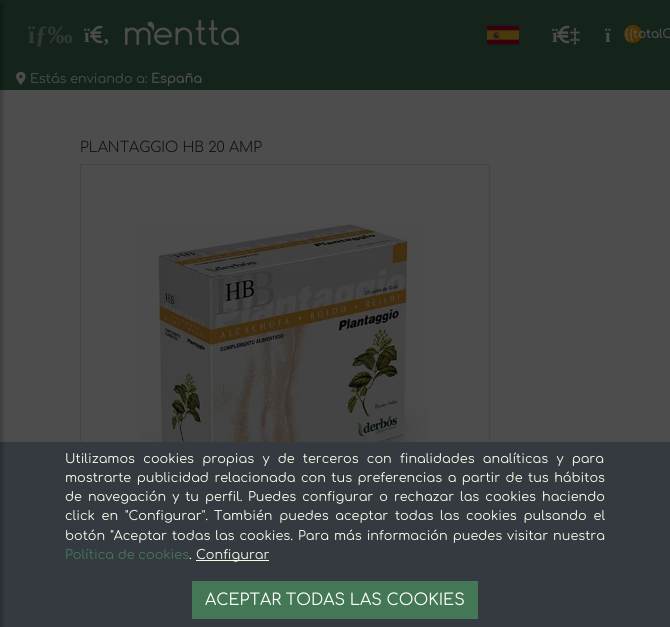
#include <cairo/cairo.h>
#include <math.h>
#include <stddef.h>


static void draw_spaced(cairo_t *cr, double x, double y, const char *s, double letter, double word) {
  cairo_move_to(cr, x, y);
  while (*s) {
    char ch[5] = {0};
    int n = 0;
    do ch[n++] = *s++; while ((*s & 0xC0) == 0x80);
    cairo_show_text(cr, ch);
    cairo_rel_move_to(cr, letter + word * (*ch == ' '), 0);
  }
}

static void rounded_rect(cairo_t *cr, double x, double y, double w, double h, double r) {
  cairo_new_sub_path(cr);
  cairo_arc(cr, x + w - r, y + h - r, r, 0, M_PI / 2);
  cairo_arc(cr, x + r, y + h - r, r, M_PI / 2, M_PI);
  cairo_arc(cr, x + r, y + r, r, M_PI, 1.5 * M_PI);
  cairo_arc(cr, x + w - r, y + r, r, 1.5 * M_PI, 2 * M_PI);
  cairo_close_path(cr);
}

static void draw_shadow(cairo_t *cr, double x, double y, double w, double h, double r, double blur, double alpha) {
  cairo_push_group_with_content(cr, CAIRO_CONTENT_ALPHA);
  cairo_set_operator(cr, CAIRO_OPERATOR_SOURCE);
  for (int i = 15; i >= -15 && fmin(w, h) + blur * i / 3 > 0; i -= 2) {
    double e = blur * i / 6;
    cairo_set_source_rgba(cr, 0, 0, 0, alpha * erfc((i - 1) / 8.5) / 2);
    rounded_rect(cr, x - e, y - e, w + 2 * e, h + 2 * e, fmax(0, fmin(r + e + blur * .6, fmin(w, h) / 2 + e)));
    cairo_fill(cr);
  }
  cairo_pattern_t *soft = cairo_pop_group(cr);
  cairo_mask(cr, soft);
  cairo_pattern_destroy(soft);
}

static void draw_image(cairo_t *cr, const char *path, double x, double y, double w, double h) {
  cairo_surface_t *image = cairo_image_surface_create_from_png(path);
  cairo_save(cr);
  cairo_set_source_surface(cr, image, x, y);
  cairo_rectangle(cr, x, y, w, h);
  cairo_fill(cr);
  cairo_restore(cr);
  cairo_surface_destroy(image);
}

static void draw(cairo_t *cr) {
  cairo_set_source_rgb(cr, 77 / 255.0, 77 / 255.0, 77 / 255.0);
  cairo_paint(cr);
  cairo_set_source_rgb(cr, 20 / 255.0, 36 / 255.0, 26 / 255.0);
  cairo_rectangle(cr, 0, 0, 670, 90);
  cairo_fill(cr);
  cairo_rectangle(cr, 80.5, 164.5, 409, 409);
  cairo_set_source_rgb(cr, 67 / 255.0, 68 / 255.0, 69 / 255.0);
  cairo_set_line_width(cr, 1);
  cairo_stroke(cr);
  cairo_set_source_rgb(cr, 52 / 255.0, 58 / 255.0, 64 / 255.0);
  cairo_rectangle(cr, 0, 442, 670, 185);
  cairo_fill(cr);
  cairo_set_source_rgb(cr, 0, 0, 0);
  draw_shadow(cr, -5, 3, 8, 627, 0, 1.5, 0.2);
  draw_image(cr, "images/1.png", 90, 25, 13, 19);
  draw_image(cr, "images/2.png", 125, 20, 114, 25);
  draw_image(cr, "images/3.png", 487, 25, 32, 20);
  draw_image(cr, "images/1.png", 557, 25, 13, 19);
  cairo_set_source_rgb(cr, 77 / 255.0, 50 / 255.0, 0);
  cairo_arc(cr, 633, 34, 9, 0, 2 * M_PI);
  cairo_fill(cr);
  draw_image(cr, "images/4.png", 16, 71, 10, 14);
  draw_image(cr, "images/5.png", 137, 224, 292, 218);
  cairo_set_source_rgb(cr, 253 / 255.0, 251 / 255.0, 235 / 255.0);
  cairo_rectangle(cr, 196, 560, 73, 1);
  cairo_fill(cr);
  cairo_set_source_rgb(cr, 67 / 255.0, 119 / 255.0, 85 / 255.0);
  cairo_rectangle(cr, 192, 581, 286, 38);
  cairo_fill(cr);
  cairo_select_font_face(cr, "Liberation Serif", CAIRO_FONT_SLANT_NORMAL, CAIRO_FONT_WEIGHT_BOLD);
  cairo_set_font_size(cr, 25);
  cairo_set_source_rgb(cr, 48 / 255.0, 56 / 255.0, 51 / 255.0);
  cairo_move_to(cr, 28, 43);
  cairo_show_text(cr, "ïƒ‰");
  cairo_set_font_size(cr, 20);
  cairo_set_source_rgb(cr, 77 / 255.0, 77 / 255.0, 77 / 255.0);
  cairo_move_to(cr, 84, 42);
  cairo_show_text(cr, "ï");
  cairo_move_to(cr, 103, 42);
  cairo_show_text(cr, "‚");
  cairo_move_to(cr, 552, 42);
  cairo_show_text(cr, "ï");
  cairo_move_to(cr, 570, 42);
  cairo_show_text(cr, "‡");
  cairo_move_to(cr, 605, 42);
  cairo_show_text(cr, "ï");
  cairo_select_font_face(cr, "Comfortaa", CAIRO_FONT_SLANT_NORMAL, CAIRO_FONT_WEIGHT_BOLD);
  cairo_set_font_size(cr, 12);
  cairo_move_to(cr, 624, 38);
  cairo_show_text(cr, "{{totalC");
  cairo_select_font_face(cr, "Comfortaa", CAIRO_FONT_SLANT_NORMAL, CAIRO_FONT_WEIGHT_NORMAL);
  cairo_set_font_size(cr, 12.8);
  cairo_move_to(cr, 30, 83);
  cairo_show_text(cr, "Estás enviando a:");
  cairo_select_font_face(cr, "Comfortaa", CAIRO_FONT_SLANT_NORMAL, CAIRO_FONT_WEIGHT_BOLD);
  cairo_move_to(cr, 151, 83);
  cairo_show_text(cr, "España");
  cairo_select_font_face(cr, "Comfortaa Light", CAIRO_FONT_SLANT_NORMAL, CAIRO_FONT_WEIGHT_NORMAL);
  cairo_set_font_size(cr, 14.4);
  cairo_set_source_rgb(cr, 10 / 255.0, 11 / 255.0, 12 / 255.0);
  cairo_move_to(cr, 80, 152);
  cairo_show_text(cr, "PLANTAGGIO HB 20 AMP");
  cairo_select_font_face(cr, "Comfortaa", CAIRO_FONT_SLANT_NORMAL, CAIRO_FONT_WEIGHT_NORMAL);
  cairo_set_font_size(cr, 12.8);
  cairo_set_source_rgb(cr, 253 / 255.0, 251 / 255.0, 235 / 255.0);
  draw_spaced(cr, 65, 463, "Utilizamos cookies propias y de terceros con finalidades analíticas y para", 0, 4.5);
  draw_spaced(cr, 65, 482, "mostrarte publicidad relacionada con tus preferencias a partir de tus hábitos", 0, 1.75);
  draw_spaced(cr, 65, 501, "de navegación y tu perfil.", 0, 2.25);
  draw_spaced(cr, 248, 501, "Puedes configurar o rechazar las cookies haciendo", 0, 2.25);
  draw_spaced(cr, 65, 520, "click en \"Configurar\".", 0, 3);
  draw_spaced(cr, 214, 520, "También puedes aceptar todas las cookies pulsando el", 0, 3);
  draw_spaced(cr, 65, 540, "botón \"Aceptar todas las cookies. Para más información puedes visitar nuestra", 0, 1.25);
  cairo_set_source_rgb(cr, 67 / 255.0, 119 / 255.0, 85 / 255.0);
  cairo_move_to(cr, 65, 559);
  cairo_show_text(cr, "Política de cookies");
  cairo_set_source_rgb(cr, 253 / 255.0, 251 / 255.0, 235 / 255.0);
  cairo_move_to(cr, 189, 559);
  cairo_show_text(cr, ".");
  cairo_move_to(cr, 196, 559);
  cairo_show_text(cr, "Configurar");
  cairo_set_font_size(cr, 16);
  cairo_set_source_rgb(cr, 1, 1, 1);
  cairo_move_to(cr, 205, 605);
  cairo_show_text(cr, "ACEPTAR TODAS LAS COOKIES");
}

int main(void) {
  cairo_surface_t *surface = cairo_image_surface_create(CAIRO_FORMAT_RGB24, 670, 627);
  cairo_t *cr = cairo_create(surface);
  cairo_font_options_t *options = cairo_font_options_create();
  cairo_font_options_set_hint_metrics(options, CAIRO_HINT_METRICS_OFF);
  cairo_font_options_set_hint_style(options, CAIRO_HINT_STYLE_NONE);
  cairo_set_font_options(cr, options);
  cairo_set_miter_limit(cr, 4);
  draw(cr);
  cairo_surface_write_to_png(surface, "out.png");
  cairo_font_options_destroy(options);
  cairo_destroy(cr);
  cairo_surface_destroy(surface);
  return 0;
}
